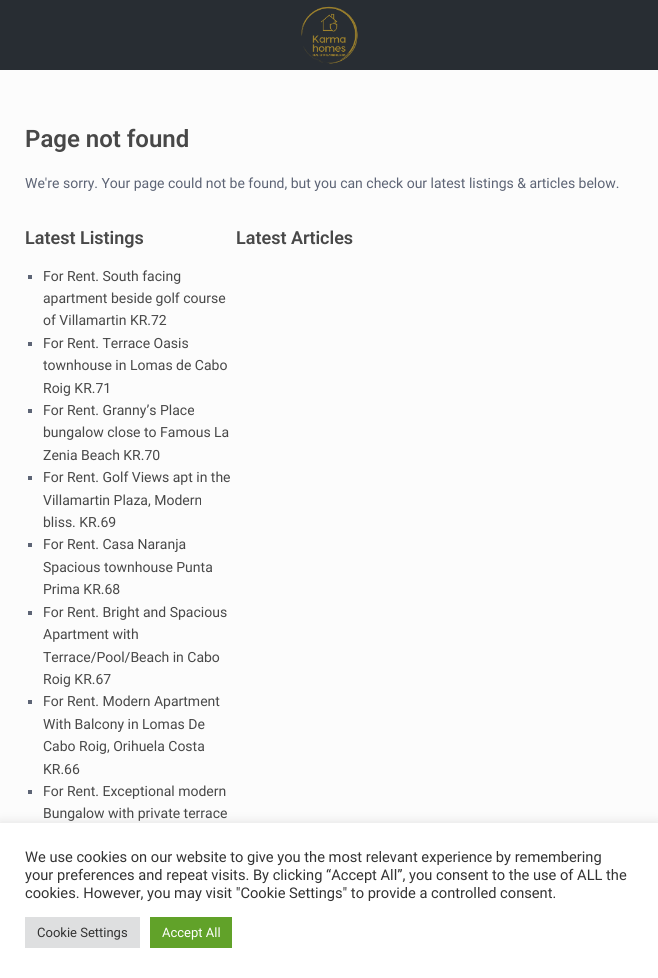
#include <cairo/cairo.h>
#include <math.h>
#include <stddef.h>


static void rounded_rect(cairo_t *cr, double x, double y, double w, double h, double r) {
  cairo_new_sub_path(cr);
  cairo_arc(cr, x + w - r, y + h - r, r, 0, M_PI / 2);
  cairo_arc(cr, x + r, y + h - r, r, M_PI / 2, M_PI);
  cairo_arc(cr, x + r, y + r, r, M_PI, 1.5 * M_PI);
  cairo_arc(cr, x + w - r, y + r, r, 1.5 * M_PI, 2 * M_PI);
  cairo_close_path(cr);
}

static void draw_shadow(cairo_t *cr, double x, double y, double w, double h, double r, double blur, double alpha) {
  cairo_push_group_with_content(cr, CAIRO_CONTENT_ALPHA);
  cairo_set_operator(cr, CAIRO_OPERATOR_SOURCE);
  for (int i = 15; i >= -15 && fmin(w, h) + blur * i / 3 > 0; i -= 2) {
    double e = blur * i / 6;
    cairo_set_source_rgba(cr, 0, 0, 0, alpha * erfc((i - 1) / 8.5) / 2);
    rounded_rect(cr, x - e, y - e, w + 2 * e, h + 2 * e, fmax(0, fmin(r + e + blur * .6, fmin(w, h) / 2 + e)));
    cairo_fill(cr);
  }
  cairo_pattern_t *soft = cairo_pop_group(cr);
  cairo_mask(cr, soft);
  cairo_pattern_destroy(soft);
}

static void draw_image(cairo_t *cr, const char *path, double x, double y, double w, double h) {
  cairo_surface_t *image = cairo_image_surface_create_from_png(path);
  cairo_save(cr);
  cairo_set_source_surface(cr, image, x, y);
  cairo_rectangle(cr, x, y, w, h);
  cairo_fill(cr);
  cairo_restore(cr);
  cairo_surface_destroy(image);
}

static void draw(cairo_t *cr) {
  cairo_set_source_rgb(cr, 252 / 255.0, 252 / 255.0, 252 / 255.0);
  cairo_paint(cr);
  cairo_set_source_rgb(cr, 40 / 255.0, 45 / 255.0, 51 / 255.0);
  cairo_rectangle(cr, 0, 0, 658, 70);
  cairo_fill(cr);
  draw_image(cr, "images/1.png", 301, 6, 57, 58);
  cairo_set_source_rgb(cr, 93 / 255.0, 100 / 255.0, 117 / 255.0);
  cairo_rectangle(cr, 28, 275, 4, 4);
  cairo_fill(cr);
  cairo_rectangle(cr, 28, 342, 4, 4);
  cairo_fill(cr);
  cairo_rectangle(cr, 28, 409, 4, 4);
  cairo_fill(cr);
  cairo_rectangle(cr, 28, 476, 4, 4);
  cairo_fill(cr);
  cairo_rectangle(cr, 28, 543, 4, 4);
  cairo_fill(cr);
  cairo_rectangle(cr, 28, 611, 4, 4);
  cairo_fill(cr);
  cairo_rectangle(cr, 28, 700, 4, 4);
  cairo_fill(cr);
  cairo_rectangle(cr, 28, 790, 4, 4);
  cairo_fill(cr);
  cairo_set_source_rgb(cr, 172 / 255.0, 171 / 255.0, 171 / 255.0);
  draw_shadow(cr, 0, 822, 658, 155, 0, 5, 0.3);
  cairo_set_source_rgb(cr, 1, 1, 1);
  cairo_rectangle(cr, 0, 823, 658, 155);
  cairo_fill(cr);
  cairo_set_source_rgb(cr, 222 / 255.0, 223 / 255.0, 224 / 255.0);
  cairo_rectangle(cr, 25, 917, 115, 31);
  cairo_fill(cr);
  cairo_set_source_rgb(cr, 97 / 255.0, 162 / 255.0, 41 / 255.0);
  cairo_rectangle(cr, 150, 917, 82, 31);
  cairo_fill(cr);
  cairo_select_font_face(cr, "Roboto SemiBold", CAIRO_FONT_SLANT_NORMAL, CAIRO_FONT_WEIGHT_NORMAL);
  cairo_set_font_size(cr, 24);
  cairo_set_source_rgb(cr, 72 / 255.0, 72 / 255.0, 72 / 255.0);
  cairo_move_to(cr, 25, 147);
  cairo_show_text(cr, "Page not found");
  cairo_select_font_face(cr, "Roboto", CAIRO_FONT_SLANT_NORMAL, CAIRO_FONT_WEIGHT_NORMAL);
  cairo_set_font_size(cr, 14);
  cairo_set_source_rgb(cr, 93 / 255.0, 100 / 255.0, 117 / 255.0);
  cairo_move_to(cr, 25, 188);
  cairo_show_text(cr, "We're sorry. Your page could not be found, but you can check our latest listings & articles below.");
  cairo_select_font_face(cr, "Roboto SemiBold", CAIRO_FONT_SLANT_NORMAL, CAIRO_FONT_WEIGHT_NORMAL);
  cairo_set_font_size(cr, 18);
  cairo_set_source_rgb(cr, 72 / 255.0, 72 / 255.0, 72 / 255.0);
  cairo_move_to(cr, 25, 244);
  cairo_show_text(cr, "Latest Listings");
  cairo_select_font_face(cr, "Roboto", CAIRO_FONT_SLANT_NORMAL, CAIRO_FONT_WEIGHT_NORMAL);
  cairo_set_font_size(cr, 14);
  cairo_move_to(cr, 43, 281);
  cairo_show_text(cr, "For Rent. South facing");
  cairo_move_to(cr, 43, 303);
  cairo_show_text(cr, "apartment beside golf course");
  cairo_move_to(cr, 43, 325);
  cairo_show_text(cr, "of Villamartin KR.72");
  cairo_move_to(cr, 43, 348);
  cairo_show_text(cr, "For Rent. Terrace Oasis");
  cairo_move_to(cr, 43, 370);
  cairo_show_text(cr, "townhouse in Lomas de Cabo");
  cairo_move_to(cr, 43, 393);
  cairo_show_text(cr, "Roig KR.71");
  cairo_move_to(cr, 43, 415);
  cairo_show_text(cr, "For Rent. Granny’s Place");
  cairo_move_to(cr, 43, 437);
  cairo_show_text(cr, "bungalow close to Famous La");
  cairo_move_to(cr, 43, 460);
  cairo_show_text(cr, "Zenia Beach KR.70");
  cairo_move_to(cr, 43, 482);
  cairo_show_text(cr, "For Rent. Golf Views apt in the");
  cairo_move_to(cr, 43, 505);
  cairo_show_text(cr, "Villamartin Plaza, Modern");
  cairo_move_to(cr, 43, 527);
  cairo_show_text(cr, "bliss. KR.69");
  cairo_move_to(cr, 43, 549);
  cairo_show_text(cr, "For Rent. Casa Naranja");
  cairo_move_to(cr, 43, 572);
  cairo_show_text(cr, "Spacious townhouse Punta");
  cairo_move_to(cr, 43, 594);
  cairo_show_text(cr, "Prima KR.68");
  cairo_move_to(cr, 43, 617);
  cairo_show_text(cr, "For Rent. Bright and Spacious");
  cairo_move_to(cr, 43, 639);
  cairo_show_text(cr, "Apartment with");
  cairo_move_to(cr, 43, 662);
  cairo_show_text(cr, "Terrace/Pool/Beach in Cabo");
  cairo_move_to(cr, 43, 684);
  cairo_show_text(cr, "Roig KR.67");
  cairo_move_to(cr, 43, 706);
  cairo_show_text(cr, "For Rent. Modern Apartment");
  cairo_move_to(cr, 43, 729);
  cairo_show_text(cr, "With Balcony in Lomas De");
  cairo_move_to(cr, 43, 751);
  cairo_show_text(cr, "Cabo Roig, Orihuela Costa");
  cairo_move_to(cr, 43, 774);
  cairo_show_text(cr, "KR.66");
  cairo_move_to(cr, 43, 796);
  cairo_show_text(cr, "For Rent. Exceptional modern");
  cairo_move_to(cr, 43, 818);
  cairo_show_text(cr, "Bungalow with private terrace");
  cairo_select_font_face(cr, "Roboto SemiBold", CAIRO_FONT_SLANT_NORMAL, CAIRO_FONT_WEIGHT_NORMAL);
  cairo_set_font_size(cr, 18);
  cairo_move_to(cr, 236, 244);
  cairo_show_text(cr, "Latest Articles");
  cairo_select_font_face(cr, "Roboto", CAIRO_FONT_SLANT_NORMAL, CAIRO_FONT_WEIGHT_NORMAL);
  cairo_set_font_size(cr, 14.65);
  cairo_set_source_rgb(cr, 51 / 255.0, 51 / 255.0, 51 / 255.0);
  cairo_move_to(cr, 25, 862);
  cairo_show_text(cr, "We use cookies on our website to give you the most relevant experience by remembering");
  cairo_move_to(cr, 25, 880);
  cairo_show_text(cr, "your preferences and repeat visits. By clicking “Accept All”, you consent to the use of ALL the");
  cairo_move_to(cr, 25, 898);
  cairo_show_text(cr, "cookies. However, you may visit \"Cookie Settings\" to provide a controlled consent.");
  cairo_set_font_size(cr, 13);
  cairo_move_to(cr, 37, 937);
  cairo_show_text(cr, "Cookie Settings");
  cairo_set_source_rgb(cr, 1, 1, 1);
  cairo_move_to(cr, 162, 937);
  cairo_show_text(cr, "Accept All");
}

int main(void) {
  cairo_surface_t *surface = cairo_image_surface_create(CAIRO_FORMAT_RGB24, 658, 978);
  cairo_t *cr = cairo_create(surface);
  cairo_font_options_t *options = cairo_font_options_create();
  cairo_font_options_set_hint_metrics(options, CAIRO_HINT_METRICS_OFF);
  cairo_font_options_set_hint_style(options, CAIRO_HINT_STYLE_NONE);
  cairo_set_font_options(cr, options);
  cairo_set_miter_limit(cr, 4);
  draw(cr);
  cairo_surface_write_to_png(surface, "out.png");
  cairo_font_options_destroy(options);
  cairo_destroy(cr);
  cairo_surface_destroy(surface);
  return 0;
}
